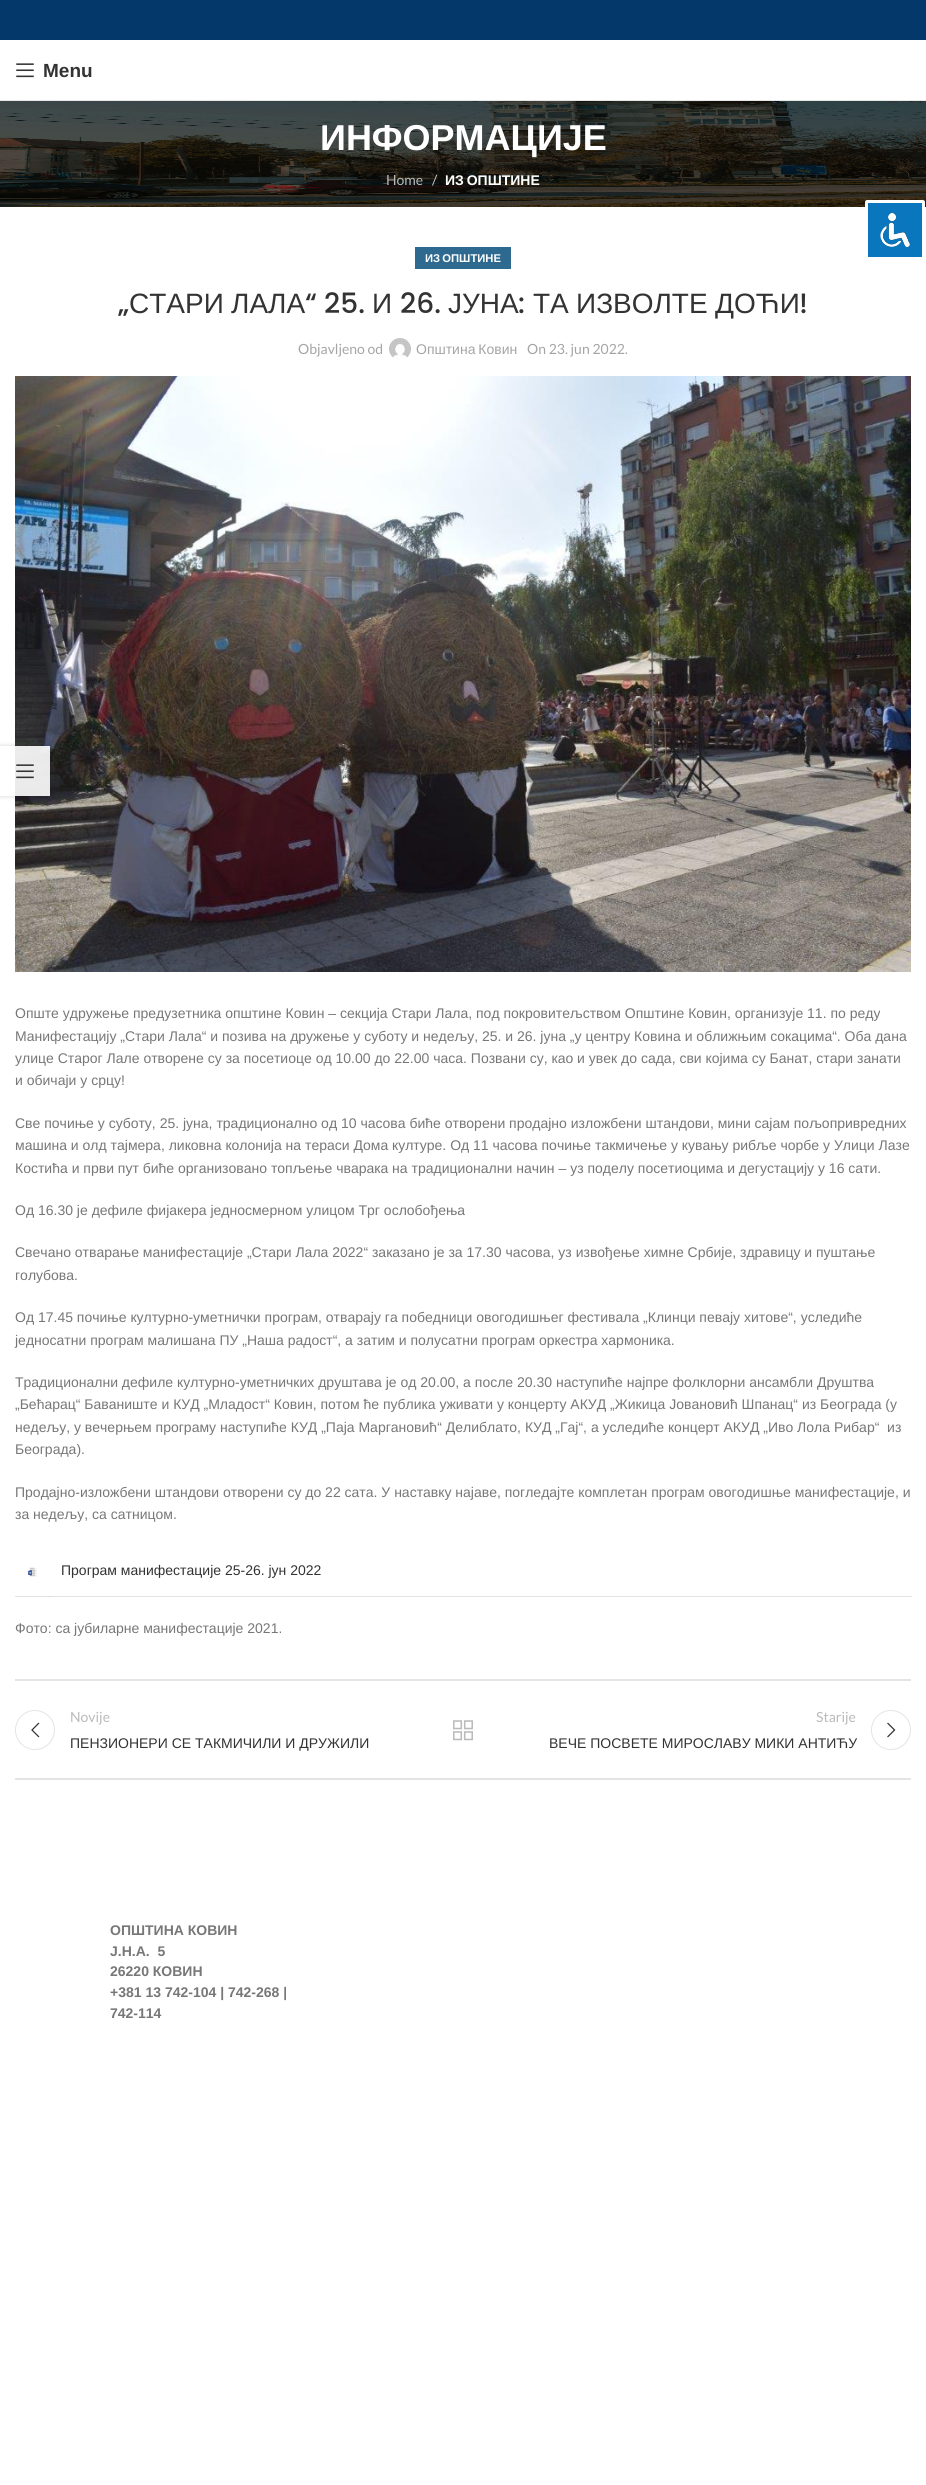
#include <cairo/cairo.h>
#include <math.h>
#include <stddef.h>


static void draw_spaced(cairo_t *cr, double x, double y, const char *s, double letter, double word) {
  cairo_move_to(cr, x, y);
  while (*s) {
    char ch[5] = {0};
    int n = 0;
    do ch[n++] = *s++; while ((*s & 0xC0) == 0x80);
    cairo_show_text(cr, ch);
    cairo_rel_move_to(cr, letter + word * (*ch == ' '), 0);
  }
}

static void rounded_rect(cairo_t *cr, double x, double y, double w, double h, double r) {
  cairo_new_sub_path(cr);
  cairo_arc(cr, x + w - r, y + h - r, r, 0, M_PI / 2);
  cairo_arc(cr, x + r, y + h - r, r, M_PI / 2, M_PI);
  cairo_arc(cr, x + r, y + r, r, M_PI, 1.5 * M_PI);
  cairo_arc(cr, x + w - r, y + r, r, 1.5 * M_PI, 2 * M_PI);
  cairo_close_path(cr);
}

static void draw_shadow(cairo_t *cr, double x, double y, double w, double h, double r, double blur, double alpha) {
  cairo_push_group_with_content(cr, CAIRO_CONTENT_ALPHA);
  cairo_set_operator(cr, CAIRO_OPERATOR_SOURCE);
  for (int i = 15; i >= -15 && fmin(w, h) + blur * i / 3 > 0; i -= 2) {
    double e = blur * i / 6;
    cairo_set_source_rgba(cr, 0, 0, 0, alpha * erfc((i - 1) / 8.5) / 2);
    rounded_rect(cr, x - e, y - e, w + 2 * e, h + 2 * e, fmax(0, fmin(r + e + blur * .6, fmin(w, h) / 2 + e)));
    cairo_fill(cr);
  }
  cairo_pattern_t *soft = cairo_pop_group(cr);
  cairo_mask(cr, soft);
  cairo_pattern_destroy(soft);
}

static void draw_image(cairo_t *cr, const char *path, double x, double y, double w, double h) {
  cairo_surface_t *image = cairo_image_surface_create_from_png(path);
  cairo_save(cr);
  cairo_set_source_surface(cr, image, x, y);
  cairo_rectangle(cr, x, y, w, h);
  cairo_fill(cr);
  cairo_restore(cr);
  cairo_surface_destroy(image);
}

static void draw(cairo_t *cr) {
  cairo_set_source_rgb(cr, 1, 1, 1);
  cairo_paint(cr);
  cairo_set_source_rgb(cr, 227 / 255.0, 227 / 255.0, 227 / 255.0);
  cairo_rectangle(cr, 15, 1596, 35, 1);
  cairo_fill(cr);
  cairo_set_source_rgb(cr, 4 / 255.0, 56 / 255.0, 107 / 255.0);
  cairo_rectangle(cr, 0, 0, 926, 40);
  cairo_fill(cr);
  cairo_set_source_rgb(cr, 230 / 255.0, 230 / 255.0, 230 / 255.0);
  cairo_rectangle(cr, 0, 100, 926, 1);
  cairo_fill(cr);
  draw_image(cr, "images/1.png", 16, 63, 18, 15);
  draw_image(cr, "images/2.png", 0, 101, 926, 106);
  cairo_set_source_rgb(cr, 46 / 255.0, 106 / 255.0, 144 / 255.0);
  cairo_rectangle(cr, 415, 247, 96, 22);
  cairo_fill(cr);
  draw_image(cr, "images/3.png", 389, 338, 22, 22);
  draw_image(cr, "images/4.png", 15, 376, 896, 596);
  draw_image(cr, "images/5.png", 27, 1567, 10, 10);
  cairo_set_source_rgb(cr, 228 / 255.0, 228 / 255.0, 228 / 255.0);
  cairo_rectangle(cr, 49, 1596, 863, 1);
  cairo_fill(cr);
  cairo_set_source_rgb(cr, 203 / 255.0, 203 / 255.0, 203 / 255.0);
  cairo_rectangle(cr, 49, 1596, 1, 1);
  cairo_fill(cr);
  cairo_set_source_rgb(cr, 228 / 255.0, 228 / 255.0, 228 / 255.0);
  cairo_rectangle(cr, 15, 1679, 896, 2);
  cairo_fill(cr);
  cairo_rectangle(cr, 15, 1778, 896, 2);
  cairo_fill(cr);
  cairo_arc(cr, 35, 1730, 19.5, 0, 2 * M_PI);
  cairo_set_line_width(cr, 1);
  cairo_stroke(cr);
  draw_image(cr, "images/6.png", 31, 1722, 9, 16);
  draw_image(cr, "images/7.png", 453, 1720, 20, 21);
  cairo_arc(cr, 891, 1730, 19.5, 0, 2 * M_PI);
  cairo_stroke(cr);
  draw_image(cr, "images/8.png", 887, 1722, 9, 16);
  cairo_save(cr);
  cairo_set_fill_rule(cr, CAIRO_FILL_RULE_EVEN_ODD);
  cairo_new_path(cr);
  cairo_move_to(cr, 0, 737);
  cairo_line_to(cr, 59, 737);
  cairo_line_to(cr, 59, 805);
  cairo_line_to(cr, 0, 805);
  cairo_close_path(cr);
  cairo_move_to(cr, 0, 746);
  cairo_line_to(cr, 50, 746);
  cairo_line_to(cr, 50, 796);
  cairo_line_to(cr, 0, 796);
  cairo_close_path(cr);
  cairo_clip(cr);
  cairo_set_source_rgb(cr, 0, 0, 0);
  draw_shadow(cr, 0, 746, 50, 50, 0, 2.5, 0.17);
  cairo_restore(cr);
  cairo_set_source_rgba(cr, 1, 1, 1, 0.9);
  cairo_rectangle(cr, 15, 746, 35, 50);
  cairo_fill(cr);
  draw_image(cr, "images/9.png", 16, 764, 18, 15);
  cairo_set_source_rgb(cr, 10 / 255.0, 118 / 255.0, 190 / 255.0);
  rounded_rect(cr, 866.5, 201.5, 57, 57, 0.5);
  cairo_fill_preserve(cr);
  cairo_set_source_rgb(cr, 1, 1, 1);
  cairo_set_line_width(cr, 3);
  cairo_stroke(cr);
  draw_image(cr, "images/10.png", 880, 213, 30, 34);
  cairo_select_font_face(cr, "Liberation Sans", CAIRO_FONT_SLANT_NORMAL, CAIRO_FONT_WEIGHT_BOLD);
  cairo_set_font_size(cr, 19);
  cairo_set_source_rgb(cr, 51 / 255.0, 51 / 255.0, 51 / 255.0);
  cairo_move_to(cr, 43, 77);
  cairo_show_text(cr, "Menu");
  cairo_set_font_size(cr, 36);
  cairo_set_source_rgb(cr, 1, 1, 1);
  cairo_move_to(cr, 320, 150);
  cairo_show_text(cr, "ИНФОРМАЦИЈЕ");
  cairo_select_font_face(cr, "Lato", CAIRO_FONT_SLANT_NORMAL, CAIRO_FONT_WEIGHT_NORMAL);
  cairo_set_font_size(cr, 14);
  cairo_set_source_rgb(cr, 185 / 255.0, 186 / 255.0, 185 / 255.0);
  cairo_move_to(cr, 386, 185);
  cairo_show_text(cr, "Home");
  cairo_set_source_rgb(cr, 207 / 255.0, 208 / 255.0, 207 / 255.0);
  cairo_move_to(cr, 432, 185);
  cairo_show_text(cr, "/");
  cairo_select_font_face(cr, "Liberation Sans", CAIRO_FONT_SLANT_NORMAL, CAIRO_FONT_WEIGHT_BOLD);
  cairo_set_source_rgb(cr, 1, 1, 1);
  draw_spaced(cr, 445, 185, "ИЗ ОПШТИНЕ", 0, -1);
  cairo_set_font_size(cr, 11.25);
  draw_spaced(cr, 425, 262, "ИЗ ОПШТИНЕ", 0, -1);
  cairo_select_font_face(cr, "Poppins Medium", CAIRO_FONT_SLANT_NORMAL, CAIRO_FONT_WEIGHT_NORMAL);
  cairo_set_font_size(cr, 28);
  cairo_set_source_rgb(cr, 51 / 255.0, 51 / 255.0, 51 / 255.0);
  cairo_move_to(cr, 118, 313);
  cairo_show_text(cr, "„");
  cairo_select_font_face(cr, "Liberation Sans", CAIRO_FONT_SLANT_NORMAL, CAIRO_FONT_WEIGHT_NORMAL);
  cairo_move_to(cr, 129, 313);
  cairo_show_text(cr, "СТАРИ");
  cairo_move_to(cr, 231, 313);
  cairo_show_text(cr, "ЛАЛА");
  cairo_select_font_face(cr, "Poppins Medium", CAIRO_FONT_SLANT_NORMAL, CAIRO_FONT_WEIGHT_NORMAL);
  cairo_move_to(cr, 305, 313);
  cairo_show_text(cr, "“ 25.");
  cairo_select_font_face(cr, "Liberation Sans", CAIRO_FONT_SLANT_NORMAL, CAIRO_FONT_WEIGHT_NORMAL);
  cairo_move_to(cr, 372, 313);
  cairo_show_text(cr, "И");
  cairo_select_font_face(cr, "Poppins Medium", CAIRO_FONT_SLANT_NORMAL, CAIRO_FONT_WEIGHT_NORMAL);
  cairo_move_to(cr, 400, 313);
  cairo_show_text(cr, "26.");
  cairo_select_font_face(cr, "Liberation Sans", CAIRO_FONT_SLANT_NORMAL, CAIRO_FONT_WEIGHT_NORMAL);
  cairo_move_to(cr, 448, 313);
  cairo_show_text(cr, "ЈУНА");
  cairo_select_font_face(cr, "Poppins Medium", CAIRO_FONT_SLANT_NORMAL, CAIRO_FONT_WEIGHT_NORMAL);
  cairo_move_to(cr, 518, 313);
  cairo_show_text(cr, ":");
  cairo_select_font_face(cr, "Liberation Sans", CAIRO_FONT_SLANT_NORMAL, CAIRO_FONT_WEIGHT_NORMAL);
  cairo_move_to(cr, 533, 313);
  cairo_show_text(cr, "ТА");
  cairo_move_to(cr, 576, 313);
  cairo_show_text(cr, "ИЗВОЛТЕ");
  cairo_move_to(cr, 715, 313);
  cairo_show_text(cr, "ДОЋИ");
  cairo_select_font_face(cr, "Poppins Medium", CAIRO_FONT_SLANT_NORMAL, CAIRO_FONT_WEIGHT_NORMAL);
  cairo_move_to(cr, 799, 313);
  cairo_show_text(cr, "!");
  cairo_select_font_face(cr, "Lato", CAIRO_FONT_SLANT_NORMAL, CAIRO_FONT_WEIGHT_NORMAL);
  cairo_set_font_size(cr, 14);
  cairo_set_source_rgb(cr, 165 / 255.0, 165 / 255.0, 165 / 255.0);
  cairo_move_to(cr, 298, 354);
  cairo_show_text(cr, "Objavljeno od");
  cairo_select_font_face(cr, "Liberation Sans", CAIRO_FONT_SLANT_NORMAL, CAIRO_FONT_WEIGHT_NORMAL);
  draw_spaced(cr, 416, 354, "Општина Ковин", 0, -1);
  cairo_select_font_face(cr, "Lato", CAIRO_FONT_SLANT_NORMAL, CAIRO_FONT_WEIGHT_NORMAL);
  cairo_move_to(cr, 527, 354);
  cairo_show_text(cr, "On 23. jun 2022.");
  cairo_select_font_face(cr, "Liberation Sans", CAIRO_FONT_SLANT_NORMAL, CAIRO_FONT_WEIGHT_NORMAL);
  cairo_set_source_rgb(cr, 119 / 255.0, 119 / 255.0, 119 / 255.0);
  cairo_move_to(cr, 15, 1018);
  cairo_show_text(cr, "Опште удружење предузетника општине Ковин – секција Стари Лала, под покровитељством Општине Ковин, организује 11. по реду");
  cairo_move_to(cr, 15, 1041);
  cairo_show_text(cr, "Манифестацију „Стари Лала“ и позива на дружење у суботу и недељу, 25. и 26. јуна „у центру Ковина и оближњим сокацима“. Оба дана");
  cairo_move_to(cr, 15, 1063);
  cairo_show_text(cr, "улице Старог Лале отворене су за посетиоце од 10.00 до 22.00 часа. Позвани су, као и увек до сада, сви којима су Банат, стари занати");
  cairo_move_to(cr, 15, 1085);
  cairo_show_text(cr, "и обичаји у срцу!");
  cairo_move_to(cr, 15, 1128);
  cairo_show_text(cr, "Све почиње у суботу, 25. јуна, традиционално од 10 часова биће отворени продајно изложбени штандови, мини сајам пољопривредних");
  cairo_move_to(cr, 15, 1150);
  cairo_show_text(cr, "машина и олд тајмера, ликовна колонија на тераси Дома културе. Од 11 часова почиње такмичење у кувању рибље чорбе у Улици Лазе");
  cairo_move_to(cr, 15, 1173);
  cairo_show_text(cr, "Костића и први пут биће организовано топљење чварака на традиционални начин – уз поделу посетиоцима и дегустацију у 16 сати.");
  cairo_move_to(cr, 15, 1215);
  cairo_show_text(cr, "Од 16.30 је дефиле фијакера једносмерном улицом Трг ослобођења");
  cairo_move_to(cr, 15, 1257);
  cairo_show_text(cr, "Свечано отварање манифестације „Стари Лала 2022“ заказано је за 17.30 часова, уз извођење химне Србије, здравицу и пуштање");
  cairo_move_to(cr, 15, 1280);
  cairo_show_text(cr, "голубова.");
  cairo_move_to(cr, 15, 1322);
  cairo_show_text(cr, "Од 17.45 почиње културно-уметнички програм, отварају га победници овогодишњег фестивала „Клинци певају хитове“, уследиће");
  cairo_move_to(cr, 15, 1345);
  cairo_show_text(cr, "једносатни програм малишана ПУ „Наша радост“, а затим и полусатни програм оркестра хармоника.");
  cairo_move_to(cr, 15, 1387);
  cairo_show_text(cr, "Традиционални дефиле културно-уметничких друштава је од 20.00, а после 20.30 наступиће најпре фолклорни ансамбли Друштва");
  cairo_move_to(cr, 15, 1409);
  cairo_show_text(cr, "„Бећарац“ Баваниште и КУД „Младост“ Ковин, потом ће публика уживати у концерту АКУД „Жикица Јовановић Шпанац“ из Београда (у");
  cairo_move_to(cr, 15, 1432);
  cairo_show_text(cr, "недељу, у вечерњем програму наступиће КУД „Паја Маргановић“ Делиблато, КУД „Гај“, а уследиће концерт АКУД „Иво Лола Рибар“  из");
  cairo_move_to(cr, 15, 1454);
  cairo_show_text(cr, "Београда).");
  cairo_move_to(cr, 15, 1497);
  cairo_show_text(cr, "Продајно-изложбени штандови отворени су до 22 сата. У наставку најаве, погледајте комплетан програм овогодишње манифестације, и");
  cairo_move_to(cr, 15, 1519);
  cairo_show_text(cr, "за недељу, са сатницом.");
  cairo_set_source_rgb(cr, 51 / 255.0, 51 / 255.0, 51 / 255.0);
  cairo_move_to(cr, 61, 1575);
  cairo_show_text(cr, "Програм манифестације 25-26. јун 2022");
  cairo_set_source_rgb(cr, 119 / 255.0, 119 / 255.0, 119 / 255.0);
  cairo_move_to(cr, 15, 1633);
  cairo_show_text(cr, "Фото: са јубиларне манифестације 2021.");
  cairo_select_font_face(cr, "Lato", CAIRO_FONT_SLANT_NORMAL, CAIRO_FONT_WEIGHT_NORMAL);
  cairo_set_source_rgb(cr, 185 / 255.0, 186 / 255.0, 185 / 255.0);
  cairo_move_to(cr, 70, 1722);
  cairo_show_text(cr, "Novije");
  cairo_select_font_face(cr, "Liberation Sans", CAIRO_FONT_SLANT_NORMAL, CAIRO_FONT_WEIGHT_NORMAL);
  cairo_set_source_rgb(cr, 51 / 255.0, 51 / 255.0, 51 / 255.0);
  cairo_move_to(cr, 70, 1748);
  cairo_show_text(cr, "ПЕНЗИОНЕРИ СЕ ТАКМИЧИЛИ И ДРУЖИЛИ");
  cairo_select_font_face(cr, "Lato", CAIRO_FONT_SLANT_NORMAL, CAIRO_FONT_WEIGHT_NORMAL);
  cairo_set_source_rgb(cr, 185 / 255.0, 186 / 255.0, 185 / 255.0);
  cairo_move_to(cr, 816, 1722);
  cairo_show_text(cr, "Starije");
  cairo_select_font_face(cr, "Liberation Sans", CAIRO_FONT_SLANT_NORMAL, CAIRO_FONT_WEIGHT_NORMAL);
  cairo_set_source_rgb(cr, 51 / 255.0, 51 / 255.0, 51 / 255.0);
  cairo_move_to(cr, 549, 1748);
  cairo_show_text(cr, "ВЕЧЕ ПОСВЕТЕ МИРОСЛАВУ МИКИ АНТИЋУ");
  cairo_select_font_face(cr, "Liberation Sans", CAIRO_FONT_SLANT_NORMAL, CAIRO_FONT_WEIGHT_BOLD);
  cairo_set_source_rgb(cr, 119 / 255.0, 119 / 255.0, 119 / 255.0);
  cairo_move_to(cr, 110, 1935);
  cairo_show_text(cr, "ОПШТИНА КОВИН");
  cairo_move_to(cr, 110, 1956);
  cairo_show_text(cr, "Ј.Н.А.  5");
  cairo_move_to(cr, 110, 1976);
  cairo_show_text(cr, "26220 КОВИН");
  cairo_move_to(cr, 110, 1997);
  cairo_show_text(cr, "+381 13 742-104 | 742-268 |");
  cairo_move_to(cr, 110, 2018);
  cairo_show_text(cr, "742-114");
}

int main(void) {
  cairo_surface_t *surface = cairo_image_surface_create(CAIRO_FORMAT_RGB24, 926, 2485);
  cairo_t *cr = cairo_create(surface);
  cairo_font_options_t *options = cairo_font_options_create();
  cairo_font_options_set_hint_metrics(options, CAIRO_HINT_METRICS_OFF);
  cairo_font_options_set_hint_style(options, CAIRO_HINT_STYLE_NONE);
  cairo_set_font_options(cr, options);
  cairo_set_miter_limit(cr, 4);
  draw(cr);
  cairo_surface_write_to_png(surface, "out.png");
  cairo_font_options_destroy(options);
  cairo_destroy(cr);
  cairo_surface_destroy(surface);
  return 0;
}
